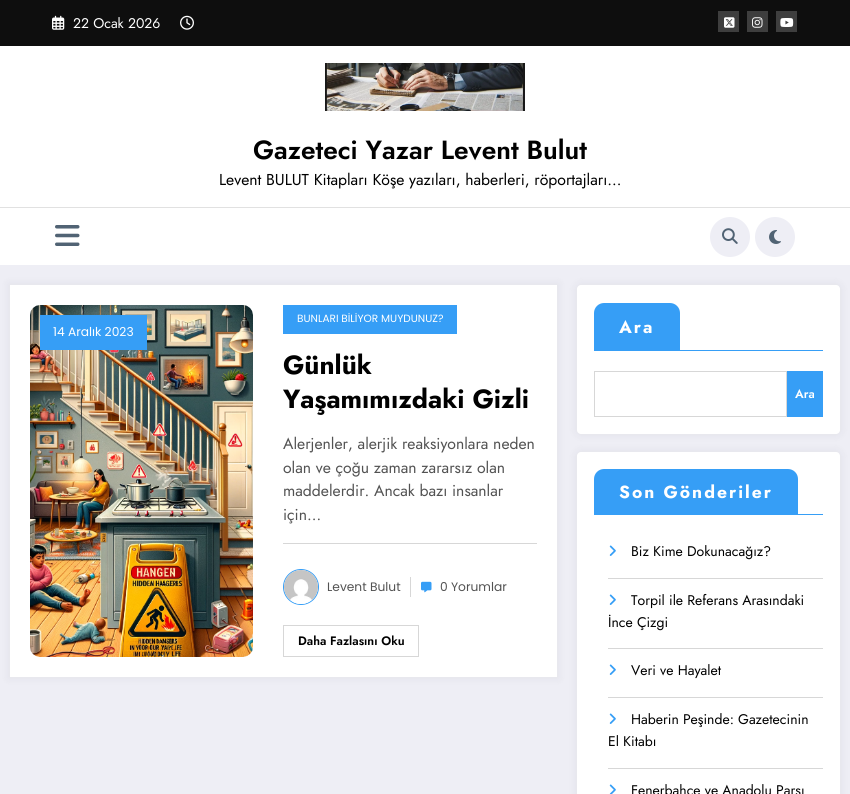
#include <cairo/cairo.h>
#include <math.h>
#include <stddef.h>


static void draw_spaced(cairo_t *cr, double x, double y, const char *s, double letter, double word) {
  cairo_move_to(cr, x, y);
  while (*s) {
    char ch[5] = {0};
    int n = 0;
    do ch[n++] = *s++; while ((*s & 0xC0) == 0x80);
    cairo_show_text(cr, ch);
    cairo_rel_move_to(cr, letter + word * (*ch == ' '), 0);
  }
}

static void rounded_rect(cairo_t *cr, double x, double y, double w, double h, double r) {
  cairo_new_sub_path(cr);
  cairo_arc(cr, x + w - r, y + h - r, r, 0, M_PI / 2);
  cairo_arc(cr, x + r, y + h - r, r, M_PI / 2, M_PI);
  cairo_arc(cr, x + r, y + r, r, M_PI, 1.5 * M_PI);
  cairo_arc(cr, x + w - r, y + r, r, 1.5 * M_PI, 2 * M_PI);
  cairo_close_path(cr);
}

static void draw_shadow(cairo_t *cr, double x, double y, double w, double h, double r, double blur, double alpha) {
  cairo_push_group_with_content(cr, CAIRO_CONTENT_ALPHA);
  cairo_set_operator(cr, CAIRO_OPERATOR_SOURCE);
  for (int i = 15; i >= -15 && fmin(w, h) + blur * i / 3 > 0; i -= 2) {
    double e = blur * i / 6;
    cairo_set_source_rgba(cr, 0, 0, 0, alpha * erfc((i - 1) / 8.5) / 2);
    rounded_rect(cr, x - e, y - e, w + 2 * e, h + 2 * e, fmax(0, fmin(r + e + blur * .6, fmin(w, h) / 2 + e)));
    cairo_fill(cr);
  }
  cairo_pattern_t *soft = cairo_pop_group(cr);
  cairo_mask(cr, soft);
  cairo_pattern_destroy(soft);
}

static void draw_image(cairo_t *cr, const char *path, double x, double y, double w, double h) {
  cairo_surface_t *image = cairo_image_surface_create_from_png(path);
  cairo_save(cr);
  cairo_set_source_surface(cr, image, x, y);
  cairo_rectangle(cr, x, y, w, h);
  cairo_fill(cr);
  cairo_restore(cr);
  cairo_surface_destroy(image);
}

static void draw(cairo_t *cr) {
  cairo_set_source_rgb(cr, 238 / 255.0, 238 / 255.0, 245 / 255.0);
  cairo_paint(cr);
  cairo_set_source_rgb(cr, 14 / 255.0, 14 / 255.0, 14 / 255.0);
  cairo_rectangle(cr, 0, 0, 850, 46);
  cairo_fill(cr);
  draw_image(cr, "images/1.png", 52, 15, 13, 15);
  draw_image(cr, "images/2.png", 180, 15, 14, 15);
  cairo_set_source_rgb(cr, 62 / 255.0, 62 / 255.0, 62 / 255.0);
  cairo_rectangle(cr, 718, 11, 21, 21);
  cairo_fill(cr);
  draw_image(cr, "images/3.png", 724, 17, 11, 11);
  cairo_rectangle(cr, 747, 11, 21, 21);
  cairo_fill(cr);
  draw_image(cr, "images/4.png", 752, 17, 11, 11);
  cairo_rectangle(cr, 776, 11, 21, 21);
  cairo_fill(cr);
  draw_image(cr, "images/5.png", 780, 18, 14, 9);
  cairo_set_source_rgb(cr, 1, 1, 1);
  cairo_rectangle(cr, 0, 46, 850, 219);
  cairo_fill(cr);
  draw_image(cr, "images/6.png", 325, 63, 200, 48);
  cairo_set_source_rgb(cr, 225 / 255.0, 225 / 255.0, 225 / 255.0);
  cairo_rectangle(cr, 0, 207, 850, 1);
  cairo_fill(cr);
  draw_image(cr, "images/7.png", 55, 225, 25, 21);
  cairo_set_source_rgb(cr, 238 / 255.0, 238 / 255.0, 245 / 255.0);
  cairo_arc(cr, 730, 237, 20, 0, 2 * M_PI);
  cairo_fill(cr);
  draw_image(cr, "images/8.png", 722, 228, 16, 16);
  cairo_arc(cr, 775, 237, 20, 0, 2 * M_PI);
  cairo_fill(cr);
  draw_image(cr, "images/9.png", 769, 230, 12, 14);
  cairo_set_source_rgb(cr, 23 / 255.0, 23 / 255.0, 35 / 255.0);
  draw_shadow(cr, 8, 283, 551, 396, 0, 4, 0.05);
  cairo_set_source_rgb(cr, 1, 1, 1);
  cairo_rectangle(cr, 10, 285, 547, 392);
  cairo_fill(cr);
  draw_image(cr, "images/10.png", 30, 305, 223, 352);
  cairo_set_source_rgb(cr, 54 / 255.0, 158 / 255.0, 246 / 255.0);
  cairo_rectangle(cr, 40, 315, 107, 35);
  cairo_fill(cr);
  cairo_rectangle(cr, 283, 305, 174, 29);
  cairo_fill(cr);
  cairo_set_source_rgb(cr, 215 / 255.0, 215 / 255.0, 215 / 255.0);
  cairo_rectangle(cr, 283, 543, 254, 1);
  cairo_fill(cr);
  cairo_arc(cr, 301, 587, 17.5, 0, 2 * M_PI);
  cairo_set_source_rgb(cr, 54 / 255.0, 158 / 255.0, 246 / 255.0);
  cairo_set_line_width(cr, 1);
  cairo_stroke(cr);
  draw_image(cr, "images/11.png", 284, 570, 34, 34);
  cairo_set_source_rgb(cr, 215 / 255.0, 215 / 255.0, 215 / 255.0);
  cairo_rectangle(cr, 410, 577, 1, 20);
  cairo_fill(cr);
  draw_image(cr, "images/12.png", 421, 581, 11, 12);
  cairo_rectangle(cr, 283.5, 625.5, 135, 31);
  cairo_stroke(cr);
  cairo_set_source_rgb(cr, 23 / 255.0, 23 / 255.0, 35 / 255.0);
  draw_shadow(cr, 575, 283, 267, 153, 6, 4, 0.05);
  cairo_set_source_rgb(cr, 1, 1, 1);
  rounded_rect(cr, 577, 285, 263, 149, 4);
  cairo_fill(cr);
  cairo_set_source_rgb(cr, 54 / 255.0, 158 / 255.0, 246 / 255.0);
  cairo_new_path(cr);
  cairo_move_to(cr, 604, 303);
  cairo_line_to(cr, 670, 303);
  cairo_curve_to(cr, 675.5, 303, 680, 307.5, 680, 313);
  cairo_line_to(cr, 680, 351);
  cairo_line_to(cr, 594, 351);
  cairo_line_to(cr, 594, 313);
  cairo_curve_to(cr, 594, 307.5, 598.5, 303, 604, 303);
  cairo_close_path(cr);
  cairo_fill(cr);
  cairo_rectangle(cr, 680, 350, 143, 1);
  cairo_fill(cr);
  cairo_rectangle(cr, 594.5, 371.5, 192, 45);
  cairo_set_source_rgb(cr, 215 / 255.0, 215 / 255.0, 215 / 255.0);
  cairo_stroke(cr);
  cairo_set_source_rgb(cr, 54 / 255.0, 158 / 255.0, 246 / 255.0);
  cairo_rectangle(cr, 787, 371, 36, 46);
  cairo_fill(cr);
  cairo_set_source_rgb(cr, 23 / 255.0, 23 / 255.0, 35 / 255.0);
  draw_shadow(cr, 575, 450, 267, 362, 6, 4, 0.05);
  cairo_set_source_rgb(cr, 1, 1, 1);
  rounded_rect(cr, 577, 452, 263, 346, 4);
  cairo_fill(cr);
  cairo_set_source_rgb(cr, 54 / 255.0, 158 / 255.0, 246 / 255.0);
  cairo_new_path(cr);
  cairo_move_to(cr, 604, 469);
  cairo_line_to(cr, 788, 469);
  cairo_curve_to(cr, 793.5, 469, 798, 473.5, 798, 479);
  cairo_line_to(cr, 798, 515);
  cairo_line_to(cr, 594, 515);
  cairo_line_to(cr, 594, 479);
  cairo_curve_to(cr, 594, 473.5, 598.5, 469, 604, 469);
  cairo_close_path(cr);
  cairo_fill(cr);
  cairo_rectangle(cr, 798, 514, 25, 1);
  cairo_fill(cr);
  cairo_set_source_rgb(cr, 215 / 255.0, 215 / 255.0, 215 / 255.0);
  cairo_rectangle(cr, 608, 578, 215, 1);
  cairo_fill(cr);
  draw_image(cr, "images/13.png", 609, 545, 7, 11);
  cairo_rectangle(cr, 608, 648, 215, 1);
  cairo_fill(cr);
  draw_image(cr, "images/13.png", 609, 594, 7, 11);
  cairo_rectangle(cr, 608, 697, 215, 1);
  cairo_fill(cr);
  draw_image(cr, "images/13.png", 609, 664, 7, 11);
  cairo_rectangle(cr, 608, 768, 215, 1);
  cairo_fill(cr);
  draw_image(cr, "images/13.png", 609, 713, 7, 11);
  draw_image(cr, "images/14.png", 609, 784, 7, 10);
  cairo_select_font_face(cr, "Jost", CAIRO_FONT_SLANT_NORMAL, CAIRO_FONT_WEIGHT_NORMAL);
  cairo_set_font_size(cr, 14);
  cairo_set_source_rgb(cr, 1, 1, 1);
  cairo_move_to(cr, 73, 28);
  cairo_show_text(cr, "22 Ocak 2026");
  cairo_select_font_face(cr, "Jost SemiBold", CAIRO_FONT_SLANT_NORMAL, CAIRO_FONT_WEIGHT_NORMAL);
  cairo_set_font_size(cr, 26.25);
  cairo_set_source_rgb(cr, 0, 0, 0);
  cairo_move_to(cr, 253, 159);
  cairo_show_text(cr, "Gazeteci Yazar Levent Bulut");
  cairo_select_font_face(cr, "Jost", CAIRO_FONT_SLANT_NORMAL, CAIRO_FONT_WEIGHT_NORMAL);
  cairo_set_font_size(cr, 15.75);
  cairo_move_to(cr, 219, 185);
  cairo_show_text(cr, "Levent BULUT Kitapları Köşe yazıları, haberleri, röportajları…");
  cairo_select_font_face(cr, "Poppins", CAIRO_FONT_SLANT_NORMAL, CAIRO_FONT_WEIGHT_NORMAL);
  cairo_set_font_size(cr, 12.25);
  cairo_set_source_rgb(cr, 1, 1, 1);
  cairo_move_to(cr, 53, 336);
  cairo_show_text(cr, "14 Aralık 2023");
  cairo_set_font_size(cr, 10.5);
  cairo_move_to(cr, 297, 322);
  cairo_show_text(cr, "BUNLARI BİLİYOR MUYDUNUZ?");
  cairo_select_font_face(cr, "Jost", CAIRO_FONT_SLANT_NORMAL, CAIRO_FONT_WEIGHT_BOLD);
  cairo_set_font_size(cr, 26.25);
  cairo_set_source_rgb(cr, 0, 0, 0);
  cairo_move_to(cr, 283, 374);
  cairo_show_text(cr, "Günlük");
  cairo_move_to(cr, 283, 408);
  cairo_show_text(cr, "Yaşamımızdaki Gizli");
  cairo_select_font_face(cr, "Jost", CAIRO_FONT_SLANT_NORMAL, CAIRO_FONT_WEIGHT_NORMAL);
  cairo_set_font_size(cr, 15.75);
  cairo_set_source_rgb(cr, 82 / 255.0, 82 / 255.0, 82 / 255.0);
  cairo_move_to(cr, 283, 449);
  cairo_show_text(cr, "Alerjenler, alerjik reaksiyonlara neden");
  cairo_move_to(cr, 283, 473);
  cairo_show_text(cr, "olan ve çoğu zaman zararsız olan");
  cairo_move_to(cr, 283, 496);
  cairo_show_text(cr, "maddelerdir. Ancak bazı insanlar");
  cairo_move_to(cr, 283, 520);
  cairo_show_text(cr, "için…");
  cairo_select_font_face(cr, "Poppins", CAIRO_FONT_SLANT_NORMAL, CAIRO_FONT_WEIGHT_NORMAL);
  cairo_set_font_size(cr, 12.25);
  cairo_move_to(cr, 327, 591);
  cairo_show_text(cr, "Levent Bulut");
  cairo_move_to(cr, 440, 591);
  cairo_show_text(cr, "0 Yorumlar");
  cairo_select_font_face(cr, "Jost SemiBold", CAIRO_FONT_SLANT_NORMAL, CAIRO_FONT_WEIGHT_NORMAL);
  cairo_set_source_rgb(cr, 0, 0, 0);
  cairo_move_to(cr, 298, 645);
  cairo_show_text(cr, "Daha Fazlasını Oku");
  cairo_select_font_face(cr, "Jost", CAIRO_FONT_SLANT_NORMAL, CAIRO_FONT_WEIGHT_BOLD);
  cairo_set_font_size(cr, 17.5);
  cairo_set_source_rgb(cr, 1, 1, 1);
  draw_spaced(cr, 619, 333, "Ara", 2, 0);
  cairo_select_font_face(cr, "Jost SemiBold", CAIRO_FONT_SLANT_NORMAL, CAIRO_FONT_WEIGHT_NORMAL);
  cairo_set_font_size(cr, 12.25);
  cairo_move_to(cr, 795, 398);
  cairo_show_text(cr, "Ara");
  cairo_select_font_face(cr, "Jost", CAIRO_FONT_SLANT_NORMAL, CAIRO_FONT_WEIGHT_BOLD);
  cairo_set_font_size(cr, 17.5);
  draw_spaced(cr, 619, 498, "Son Gönderiler", 2, 0);
  cairo_select_font_face(cr, "Jost", CAIRO_FONT_SLANT_NORMAL, CAIRO_FONT_WEIGHT_NORMAL);
  cairo_set_font_size(cr, 14);
  cairo_set_source_rgb(cr, 0, 0, 0);
  cairo_move_to(cr, 631, 556);
  cairo_show_text(cr, "Biz Kime Dokunacağız?");
  cairo_move_to(cr, 631, 605);
  cairo_show_text(cr, "Torpil ile Referans Arasındaki");
  cairo_move_to(cr, 608, 627);
  cairo_show_text(cr, "İnce Çizgi");
  cairo_move_to(cr, 631, 675);
  cairo_show_text(cr, "Veri ve Hayalet");
  cairo_move_to(cr, 631, 724);
  cairo_show_text(cr, "Haberin Peşinde: Gazetecinin");
  cairo_move_to(cr, 608, 746);
  cairo_show_text(cr, "El Kitabı");
  cairo_move_to(cr, 631, 795);
  cairo_show_text(cr, "Fenerbahçe ve Anadolu Parsı");
}

int main(void) {
  cairo_surface_t *surface = cairo_image_surface_create(CAIRO_FORMAT_RGB24, 850, 794);
  cairo_t *cr = cairo_create(surface);
  cairo_font_options_t *options = cairo_font_options_create();
  cairo_font_options_set_hint_metrics(options, CAIRO_HINT_METRICS_OFF);
  cairo_font_options_set_hint_style(options, CAIRO_HINT_STYLE_NONE);
  cairo_set_font_options(cr, options);
  cairo_set_miter_limit(cr, 4);
  draw(cr);
  cairo_surface_write_to_png(surface, "out.png");
  cairo_font_options_destroy(options);
  cairo_destroy(cr);
  cairo_surface_destroy(surface);
  return 0;
}
